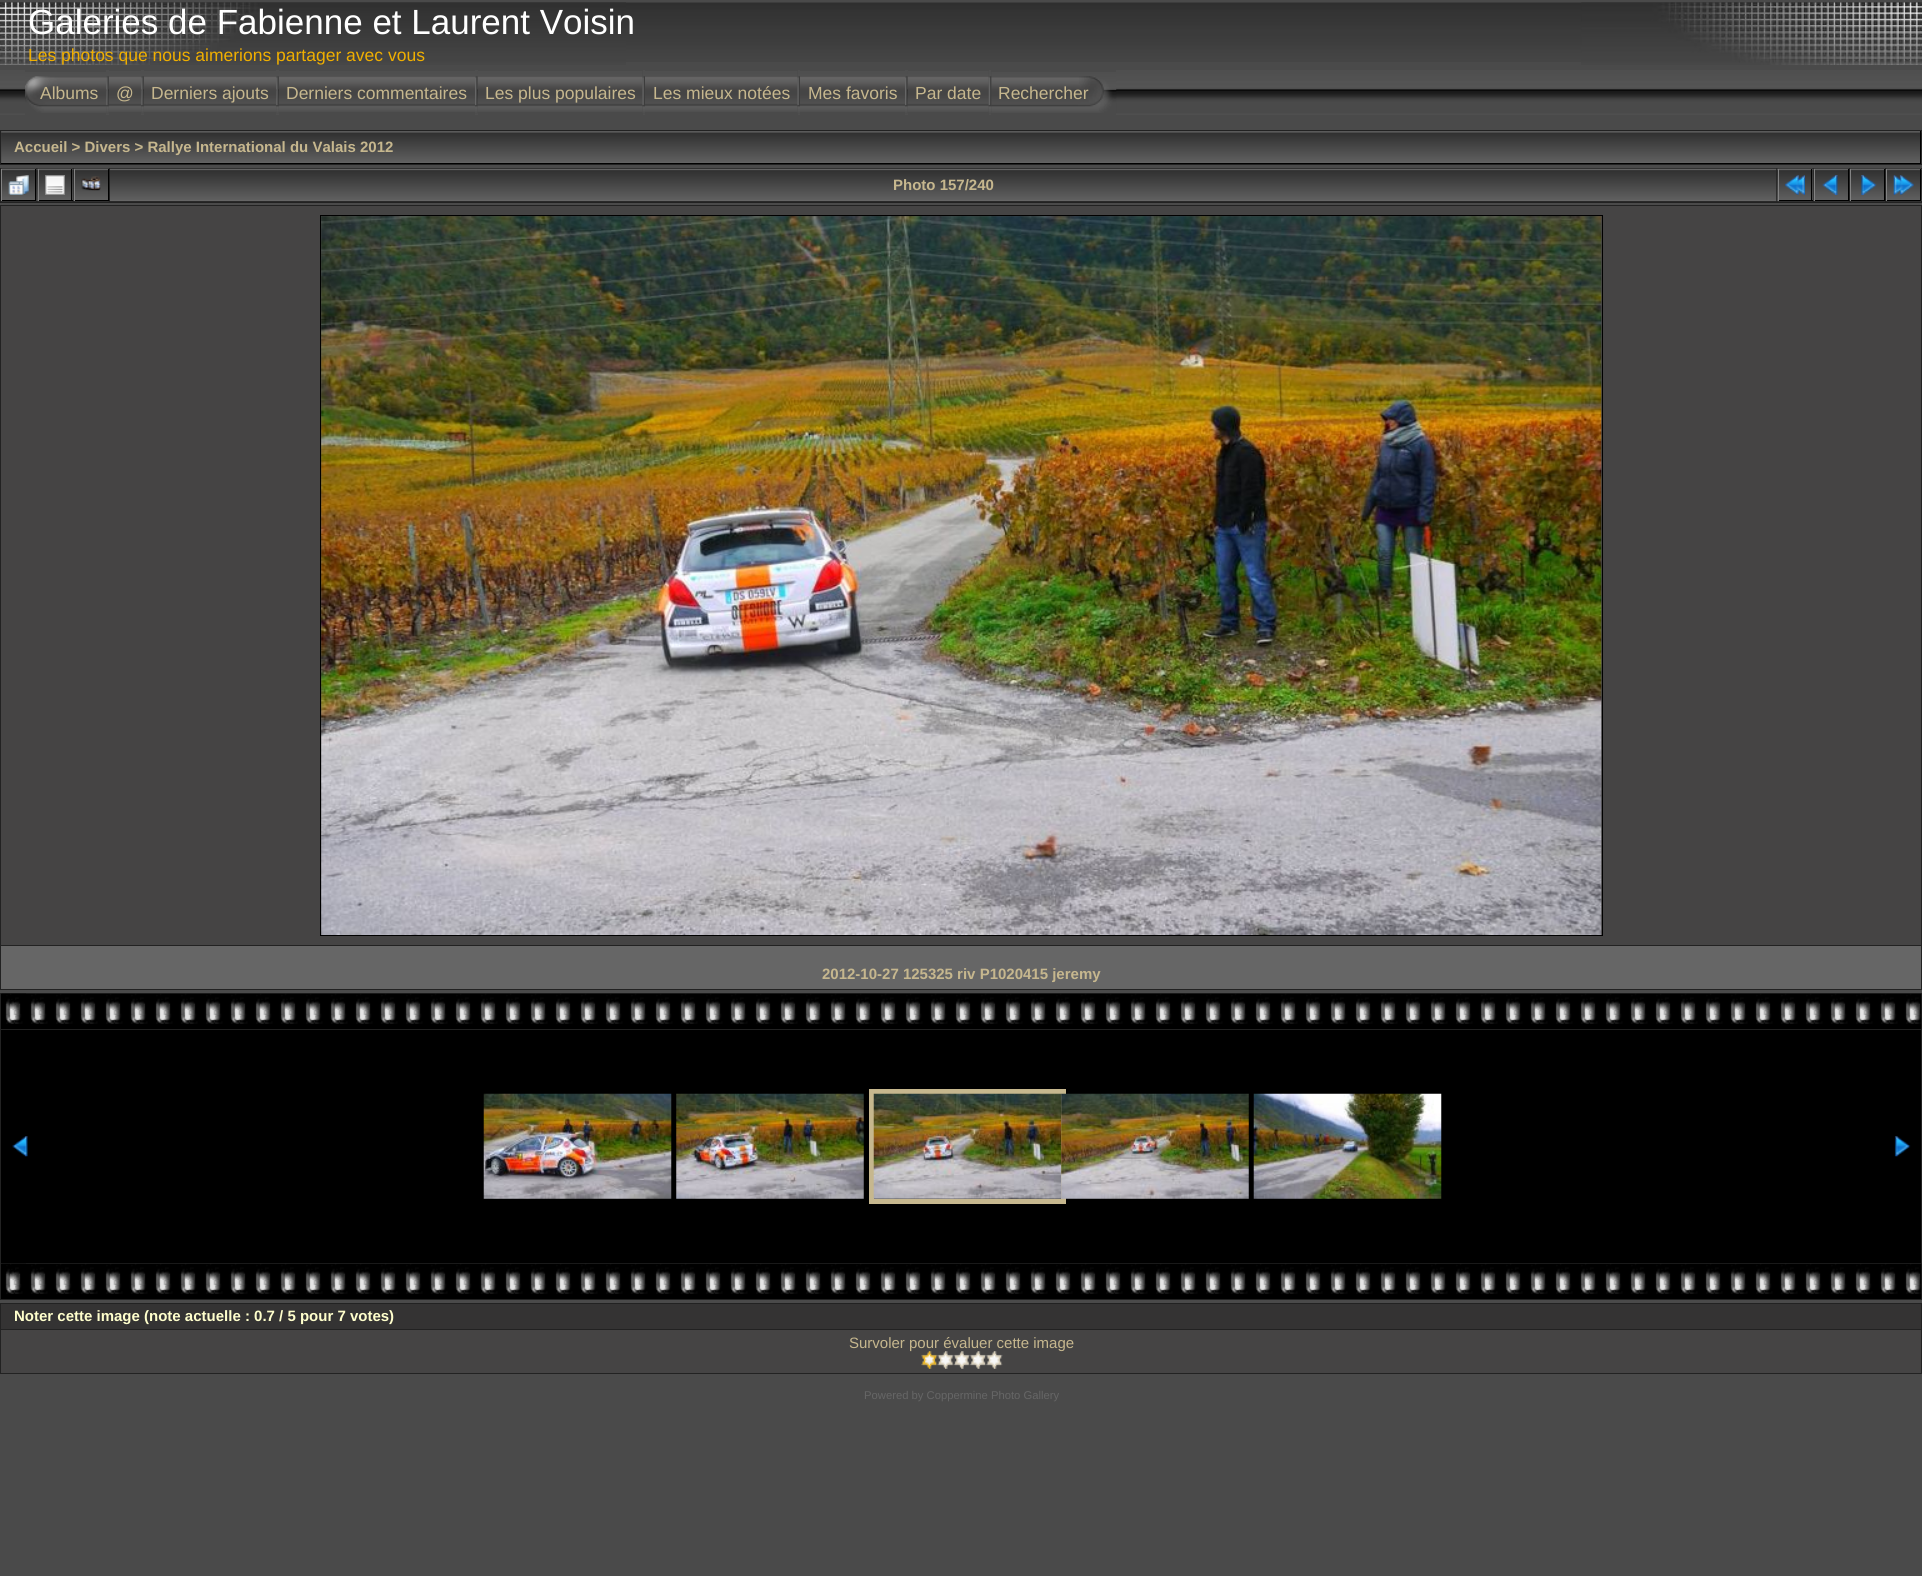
#include <cairo/cairo.h>
#include <math.h>
#include <stddef.h>


static void draw_image(cairo_t *cr, const char *path, double x, double y, double w, double h) {
  cairo_surface_t *image = cairo_image_surface_create_from_png(path);
  cairo_save(cr);
  cairo_set_source_surface(cr, image, x, y);
  cairo_rectangle(cr, x, y, w, h);
  cairo_fill(cr);
  cairo_restore(cr);
  cairo_surface_destroy(image);
}

static void draw(cairo_t *cr) {
  cairo_set_source_rgb(cr, 74 / 255.0, 74 / 255.0, 74 / 255.0);
  cairo_paint(cr);
  draw_image(cr, "images/1.png", 0, 2, 1922, 60);
  draw_image(cr, "images/2.png", 0, 2, 626, 63);
  draw_image(cr, "images/3.png", 1581, 2, 341, 63);
  draw_image(cr, "images/4.png", 0, 70, 1922, 45);
  cairo_set_source_rgb(cr, 74 / 255.0, 74 / 255.0, 74 / 255.0);
  cairo_rectangle(cr, 25, 70, 81, 45);
  cairo_fill(cr);
  draw_image(cr, "images/5.png", 25, 72, 82, 41);
  cairo_rectangle(cr, 109, 70, 32, 45);
  cairo_fill(cr);
  draw_image(cr, "images/7.png", 108, 71, 34, 41);
  draw_image(cr, "images/6.png", 106, 76, 3, 37);
  cairo_rectangle(cr, 144, 70, 132, 45);
  cairo_fill(cr);
  draw_image(cr, "images/9.png", 143, 71, 134, 41);
  draw_image(cr, "images/8.png", 141, 76, 3, 37);
  cairo_rectangle(cr, 279, 70, 196, 45);
  cairo_fill(cr);
  draw_image(cr, "images/10.png", 278, 71, 197, 41);
  draw_image(cr, "images/8.png", 276, 76, 3, 37);
  cairo_rectangle(cr, 478, 70, 165, 45);
  cairo_fill(cr);
  draw_image(cr, "images/12.png", 477, 71, 166, 41);
  draw_image(cr, "images/11.png", 475, 76, 3, 37);
  draw_image(cr, "images/13.png", 642, 76, 3, 37);
  cairo_rectangle(cr, 645, 70, 153, 45);
  cairo_fill(cr);
  draw_image(cr, "images/14.png", 645, 71, 153, 41);
  draw_image(cr, "images/13.png", 797, 76, 3, 37);
  cairo_rectangle(cr, 800, 70, 105, 45);
  cairo_fill(cr);
  draw_image(cr, "images/15.png", 800, 71, 105, 41);
  cairo_rectangle(cr, 908, 70, 81, 45);
  cairo_fill(cr);
  draw_image(cr, "images/16.png", 907, 71, 82, 41);
  draw_image(cr, "images/11.png", 905, 76, 3, 37);
  cairo_rectangle(cr, 991, 70, 125, 45);
  cairo_fill(cr);
  draw_image(cr, "images/18.png", 991, 72, 126, 41);
  draw_image(cr, "images/17.png", 988, 76, 4, 37);
  cairo_set_source_rgb(cr, 34 / 255.0, 34 / 255.0, 34 / 255.0);
  cairo_rectangle(cr, 0, 130, 1922, 35);
  cairo_fill(cr);
  cairo_set_source_rgb(cr, 63 / 255.0, 63 / 255.0, 63 / 255.0);
  cairo_rectangle(cr, 1, 131, 1919, 32);
  cairo_fill(cr);
  draw_image(cr, "images/19.png", 1, 131, 1921, 33);
  cairo_set_source_rgb(cr, 0, 0, 0);
  cairo_rectangle(cr, 1920, 131, 1, 33);
  cairo_fill(cr);
  cairo_rectangle(cr, 1, 163, 1920, 1);
  cairo_fill(cr);
  cairo_set_source_rgb(cr, 34 / 255.0, 34 / 255.0, 34 / 255.0);
  cairo_rectangle(cr, 0, 168, 1922, 35);
  cairo_fill(cr);
  draw_image(cr, "images/20.png", 1, 168, 36, 34);
  draw_image(cr, "images/21.png", 1, 168, 36, 34);
  cairo_set_source_rgb(cr, 0, 0, 0);
  cairo_rectangle(cr, 35, 169, 1, 32);
  cairo_fill(cr);
  cairo_rectangle(cr, 1, 200, 35, 1);
  cairo_fill(cr);
  cairo_set_source_rgb(cr, 131 / 255.0, 131 / 255.0, 131 / 255.0);
  cairo_rectangle(cr, 1, 169, 1, 32);
  cairo_fill(cr);
  draw_image(cr, "images/22.png", 8, 175, 21, 20);
  draw_image(cr, "images/23.png", 37, 168, 36, 34);
  cairo_set_source_rgb(cr, 63 / 255.0, 63 / 255.0, 63 / 255.0);
  cairo_rectangle(cr, 72, 169, 1, 31);
  cairo_fill(cr);
  draw_image(cr, "images/24.png", 37, 168, 36, 34);
  cairo_set_source_rgb(cr, 0, 0, 0);
  cairo_rectangle(cr, 71, 169, 1, 32);
  cairo_fill(cr);
  cairo_rectangle(cr, 38, 200, 35, 1);
  cairo_fill(cr);
  cairo_set_source_rgb(cr, 131 / 255.0, 131 / 255.0, 131 / 255.0);
  cairo_rectangle(cr, 38, 169, 1, 32);
  cairo_fill(cr);
  draw_image(cr, "images/25.png", 45, 175, 20, 20);
  draw_image(cr, "images/26.png", 73, 168, 36, 34);
  draw_image(cr, "images/27.png", 73, 168, 36, 34);
  cairo_set_source_rgb(cr, 0, 0, 0);
  cairo_rectangle(cr, 108, 169, 1, 32);
  cairo_fill(cr);
  cairo_rectangle(cr, 74, 200, 35, 1);
  cairo_fill(cr);
  cairo_set_source_rgb(cr, 131 / 255.0, 131 / 255.0, 131 / 255.0);
  cairo_rectangle(cr, 74, 169, 1, 32);
  cairo_fill(cr);
  draw_image(cr, "images/28.png", 81, 176, 20, 15);
  draw_image(cr, "images/29.png", 110, 168, 1667, 34);
  draw_image(cr, "images/23.png", 1777, 168, 36, 34);
  cairo_set_source_rgb(cr, 63 / 255.0, 63 / 255.0, 63 / 255.0);
  cairo_rectangle(cr, 1812, 169, 1, 31);
  cairo_fill(cr);
  draw_image(cr, "images/24.png", 1777, 168, 36, 34);
  cairo_set_source_rgb(cr, 0, 0, 0);
  cairo_rectangle(cr, 1811, 169, 1, 32);
  cairo_fill(cr);
  cairo_rectangle(cr, 1778, 200, 35, 1);
  cairo_fill(cr);
  cairo_set_source_rgb(cr, 131 / 255.0, 131 / 255.0, 131 / 255.0);
  cairo_rectangle(cr, 1778, 169, 1, 32);
  cairo_fill(cr);
  draw_image(cr, "images/30.png", 1785, 175, 20, 20);
  draw_image(cr, "images/26.png", 1813, 168, 36, 34);
  draw_image(cr, "images/27.png", 1813, 168, 36, 34);
  cairo_set_source_rgb(cr, 0, 0, 0);
  cairo_rectangle(cr, 1848, 169, 1, 32);
  cairo_fill(cr);
  cairo_rectangle(cr, 1814, 200, 35, 1);
  cairo_fill(cr);
  cairo_set_source_rgb(cr, 131 / 255.0, 131 / 255.0, 131 / 255.0);
  cairo_rectangle(cr, 1814, 169, 1, 32);
  cairo_fill(cr);
  draw_image(cr, "images/31.png", 1822, 175, 16, 20);
  draw_image(cr, "images/32.png", 1850, 168, 35, 34);
  draw_image(cr, "images/33.png", 1850, 168, 35, 34);
  cairo_set_source_rgb(cr, 0, 0, 0);
  cairo_rectangle(cr, 1884, 169, 1, 32);
  cairo_fill(cr);
  cairo_rectangle(cr, 1850, 200, 35, 1);
  cairo_fill(cr);
  cairo_set_source_rgb(cr, 131 / 255.0, 131 / 255.0, 131 / 255.0);
  cairo_rectangle(cr, 1850, 169, 1, 32);
  cairo_fill(cr);
  draw_image(cr, "images/34.png", 1861, 175, 16, 20);
  draw_image(cr, "images/20.png", 1886, 168, 36, 34);
  draw_image(cr, "images/21.png", 1886, 168, 36, 34);
  cairo_set_source_rgb(cr, 0, 0, 0);
  cairo_rectangle(cr, 1920, 169, 1, 32);
  cairo_fill(cr);
  cairo_rectangle(cr, 1886, 200, 35, 1);
  cairo_fill(cr);
  cairo_set_source_rgb(cr, 131 / 255.0, 131 / 255.0, 131 / 255.0);
  cairo_rectangle(cr, 1886, 169, 1, 32);
  cairo_fill(cr);
  draw_image(cr, "images/35.png", 1893, 175, 21, 20);
  cairo_set_source_rgb(cr, 34 / 255.0, 34 / 255.0, 34 / 255.0);
  cairo_rectangle(cr, 0, 205, 1922, 785);
  cairo_fill(cr);
  cairo_set_source_rgb(cr, 69 / 255.0, 68 / 255.0, 68 / 255.0);
  cairo_rectangle(cr, 1, 206, 1920, 739);
  cairo_fill(cr);
  cairo_rectangle(cr, 320.5, 215.5, 1282, 720);
  cairo_set_source_rgb(cr, 0, 0, 0);
  cairo_set_line_width(cr, 1);
  cairo_stroke(cr);
  draw_image(cr, "images/36.png", 321, 216, 1281, 719);
  cairo_set_source_rgb(cr, 102 / 255.0, 102 / 255.0, 102 / 255.0);
  cairo_rectangle(cr, 1, 946, 1920, 43);
  cairo_fill(cr);
  cairo_set_source_rgb(cr, 34 / 255.0, 34 / 255.0, 34 / 255.0);
  cairo_rectangle(cr, 0, 993, 1922, 307);
  cairo_fill(cr);
  cairo_set_source_rgb(cr, 0, 0, 0);
  cairo_rectangle(cr, 1, 994, 1920, 35);
  cairo_fill(cr);
  draw_image(cr, "images/37.png", 1, 993, 1921, 36);
  draw_image(cr, "images/38.png", 1, 993, 25, 28);
  cairo_rectangle(cr, 1, 1030, 1920, 233);
  cairo_fill(cr);
  draw_image(cr, "images/39.png", 12, 1136, 16, 21);
  draw_image(cr, "images/40.png", 483, 1093, 189, 106);
  draw_image(cr, "images/41.png", 676, 1093, 188, 106);
  cairo_rectangle(cr, 871.5, 1091.5, 192, 110);
  cairo_set_source_rgb(cr, 198 / 255.0, 183 / 255.0, 142 / 255.0);
  cairo_set_line_width(cr, 5);
  cairo_stroke(cr);
  draw_image(cr, "images/42.png", 873, 1093, 189, 106);
  draw_image(cr, "images/43.png", 1061, 1093, 188, 106);
  draw_image(cr, "images/44.png", 1253, 1093, 189, 106);
  draw_image(cr, "images/45.png", 1894, 1136, 17, 21);
  cairo_set_source_rgb(cr, 0, 0, 0);
  cairo_rectangle(cr, 1, 1264, 1920, 35);
  cairo_fill(cr);
  draw_image(cr, "images/46.png", 1, 1263, 1921, 36);
  draw_image(cr, "images/38.png", 1, 1263, 25, 28);
  cairo_set_source_rgb(cr, 34 / 255.0, 34 / 255.0, 34 / 255.0);
  cairo_rectangle(cr, 0, 1303, 1922, 71);
  cairo_fill(cr);
  cairo_set_source_rgb(cr, 52 / 255.0, 51 / 255.0, 51 / 255.0);
  cairo_rectangle(cr, 1, 1304, 1920, 25);
  cairo_fill(cr);
  cairo_set_source_rgb(cr, 69 / 255.0, 68 / 255.0, 68 / 255.0);
  cairo_rectangle(cr, 1, 1330, 1920, 43);
  cairo_fill(cr);
  cairo_select_font_face(cr, "Liberation Sans", CAIRO_FONT_SLANT_NORMAL, CAIRO_FONT_WEIGHT_NORMAL);
  cairo_set_font_size(cr, 35);
  cairo_set_source_rgb(cr, 1, 1, 1);
  cairo_move_to(cr, 28, 34);
  cairo_show_text(cr, "Galeries de Fabienne et Laurent Voisin");
  cairo_set_font_size(cr, 17.5);
  cairo_set_source_rgb(cr, 240 / 255.0, 175 / 255.0, 0);
  cairo_move_to(cr, 28, 61);
  cairo_show_text(cr, "Les photos que nous aimerions partager avec vous");
  cairo_set_source_rgb(cr, 198 / 255.0, 183 / 255.0, 142 / 255.0);
  cairo_move_to(cr, 40, 99);
  cairo_show_text(cr, "Albums");
  cairo_move_to(cr, 116, 99);
  cairo_show_text(cr, "@");
  cairo_move_to(cr, 151, 99);
  cairo_show_text(cr, "Derniers ajouts");
  cairo_move_to(cr, 286, 99);
  cairo_show_text(cr, "Derniers commentaires");
  cairo_move_to(cr, 485, 99);
  cairo_show_text(cr, "Les plus populaires");
  cairo_move_to(cr, 653, 99);
  cairo_show_text(cr, "Les mieux notées");
  cairo_move_to(cr, 808, 99);
  cairo_show_text(cr, "Mes favoris");
  cairo_move_to(cr, 915, 99);
  cairo_show_text(cr, "Par date");
  cairo_move_to(cr, 998, 99);
  cairo_show_text(cr, "Rechercher");
  cairo_select_font_face(cr, "Liberation Sans", CAIRO_FONT_SLANT_NORMAL, CAIRO_FONT_WEIGHT_BOLD);
  cairo_set_font_size(cr, 15);
  cairo_move_to(cr, 14, 152);
  cairo_show_text(cr, "Accueil > Divers > Rallye International du Valais 2012");
  cairo_move_to(cr, 893, 190);
  cairo_show_text(cr, "Photo 157/240");
  cairo_move_to(cr, 822, 979);
  cairo_show_text(cr, "2012-10-27 125325 riv P1020415 jeremy");
  cairo_set_source_rgb(cr, 1, 1, 204 / 255.0);
  cairo_move_to(cr, 14, 1321);
  cairo_show_text(cr, "Noter cette image (note actuelle : 0.7 / 5 pour 7 votes)");
  cairo_select_font_face(cr, "Liberation Sans", CAIRO_FONT_SLANT_NORMAL, CAIRO_FONT_WEIGHT_NORMAL);
  cairo_set_source_rgb(cr, 198 / 255.0, 183 / 255.0, 142 / 255.0);
  cairo_move_to(cr, 849, 1348);
  cairo_show_text(cr, "Survoler pour évaluer cette image");
  draw_image(cr, "images/47.png", 921, 1351, 17, 18);
  draw_image(cr, "images/48.png", 937, 1351, 17, 18);
  draw_image(cr, "images/49.png", 953, 1351, 17, 18);
  draw_image(cr, "images/50.png", 970, 1351, 17, 18);
  draw_image(cr, "images/51.png", 986, 1351, 17, 18);
  cairo_set_font_size(cr, 11.25);
  cairo_set_source_rgb(cr, 102 / 255.0, 102 / 255.0, 102 / 255.0);
  cairo_move_to(cr, 864, 1399);
  cairo_show_text(cr, "Powered by Coppermine Photo Gallery");
}

int main(void) {
  cairo_surface_t *surface = cairo_image_surface_create(CAIRO_FORMAT_RGB24, 1922, 1576);
  cairo_t *cr = cairo_create(surface);
  cairo_font_options_t *options = cairo_font_options_create();
  cairo_font_options_set_hint_metrics(options, CAIRO_HINT_METRICS_OFF);
  cairo_font_options_set_hint_style(options, CAIRO_HINT_STYLE_NONE);
  cairo_set_font_options(cr, options);
  cairo_set_miter_limit(cr, 4);
  draw(cr);
  cairo_surface_write_to_png(surface, "out.png");
  cairo_font_options_destroy(options);
  cairo_destroy(cr);
  cairo_surface_destroy(surface);
  return 0;
}
